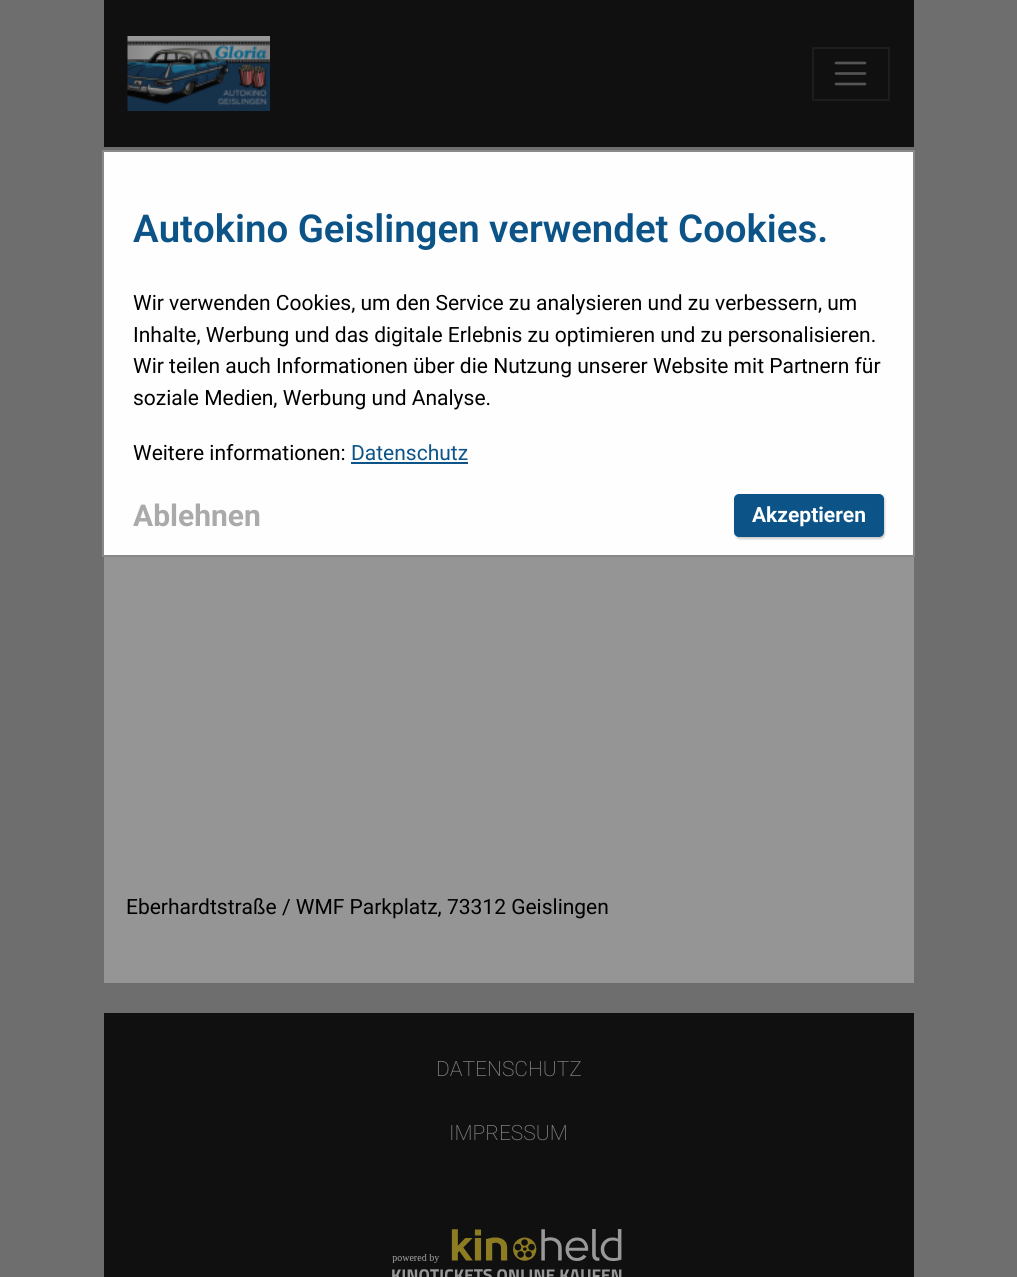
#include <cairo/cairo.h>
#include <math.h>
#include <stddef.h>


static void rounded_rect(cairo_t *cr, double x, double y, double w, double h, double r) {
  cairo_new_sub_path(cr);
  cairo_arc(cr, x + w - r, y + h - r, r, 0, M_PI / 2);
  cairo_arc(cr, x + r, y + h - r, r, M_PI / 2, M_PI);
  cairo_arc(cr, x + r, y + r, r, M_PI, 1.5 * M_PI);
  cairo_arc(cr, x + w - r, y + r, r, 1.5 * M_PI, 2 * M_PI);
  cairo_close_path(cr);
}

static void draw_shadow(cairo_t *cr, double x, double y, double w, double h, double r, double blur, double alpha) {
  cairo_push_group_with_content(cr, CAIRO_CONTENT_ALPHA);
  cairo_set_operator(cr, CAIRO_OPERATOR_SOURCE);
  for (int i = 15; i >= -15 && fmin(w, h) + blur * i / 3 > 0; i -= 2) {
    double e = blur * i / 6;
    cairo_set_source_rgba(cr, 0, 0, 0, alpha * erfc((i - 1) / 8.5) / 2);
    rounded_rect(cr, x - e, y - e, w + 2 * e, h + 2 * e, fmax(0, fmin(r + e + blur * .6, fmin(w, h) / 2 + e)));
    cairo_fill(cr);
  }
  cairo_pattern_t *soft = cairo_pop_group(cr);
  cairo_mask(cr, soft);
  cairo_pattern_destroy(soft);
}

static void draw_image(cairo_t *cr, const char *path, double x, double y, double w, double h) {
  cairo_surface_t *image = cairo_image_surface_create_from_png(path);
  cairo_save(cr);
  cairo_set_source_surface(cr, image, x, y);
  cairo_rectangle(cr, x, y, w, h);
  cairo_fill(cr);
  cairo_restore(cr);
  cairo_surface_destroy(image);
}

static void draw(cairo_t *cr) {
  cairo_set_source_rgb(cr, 110 / 255.0, 110 / 255.0, 110 / 255.0);
  cairo_paint(cr);
  cairo_set_source_rgb(cr, 16 / 255.0, 16 / 255.0, 16 / 255.0);
  cairo_rectangle(cr, 104, 0, 810, 147);
  cairo_fill(cr);
  draw_image(cr, "images/1.png", 127, 36, 143, 75);
  cairo_rectangle(cr, 813, 48, 76, 52);
  cairo_set_source_rgb(cr, 29 / 255.0, 29 / 255.0, 29 / 255.0);
  cairo_stroke(cr);
  cairo_new_path(cr);
  cairo_move_to(cr, 836, 63);
  cairo_line_to(cr, 865, 63);
  cairo_move_to(cr, 836, 73.5);
  cairo_line_to(cr, 865, 73.5);
  cairo_move_to(cr, 836, 84);
  cairo_line_to(cr, 865, 84);
  cairo_set_source_rgb(cr, 85 / 255.0, 85 / 255.0, 85 / 255.0);
  cairo_set_line_width(cr, 2.6);
  cairo_set_line_cap(cr, CAIRO_LINE_CAP_ROUND);
  cairo_stroke(cr);
  cairo_set_source_rgba(cr, 153 / 255.0, 153 / 255.0, 153 / 255.0, 0.9);
  cairo_rectangle(cr, 104, 557, 810, 426);
  cairo_fill(cr);
  cairo_set_source_rgb(cr, 254 / 255.0, 254 / 255.0, 254 / 255.0);
  cairo_rectangle(cr, 103, 151, 811, 405);
  cairo_fill_preserve(cr);
  cairo_set_source_rgb(cr, 136 / 255.0, 136 / 255.0, 136 / 255.0);
  cairo_set_line_width(cr, 2);
  cairo_set_line_cap(cr, CAIRO_LINE_CAP_BUTT);
  cairo_stroke(cr);
  cairo_set_source_rgb(cr, 12 / 255.0, 84 / 255.0, 136 / 255.0);
  cairo_rectangle(cr, 351, 462, 117, 2);
  cairo_fill(cr);
  cairo_set_source_rgb(cr, 0, 0, 0);
  draw_shadow(cr, 735, 495, 150, 44, 5, 1, 0.2);
  cairo_set_source_rgb(cr, 12 / 255.0, 84 / 255.0, 136 / 255.0);
  rounded_rect(cr, 734, 494, 150, 43, 5);
  cairo_fill(cr);
  cairo_set_source_rgb(cr, 16 / 255.0, 16 / 255.0, 16 / 255.0);
  cairo_rectangle(cr, 104, 1013, 810, 264);
  cairo_fill(cr);
  draw_image(cr, "images/2.png", 392, 1229, 230, 48);
  cairo_select_font_face(cr, "Roboto SemiBold", CAIRO_FONT_SLANT_NORMAL, CAIRO_FONT_WEIGHT_NORMAL);
  cairo_set_font_size(cr, 38.4);
  cairo_set_source_rgb(cr, 12 / 255.0, 84 / 255.0, 136 / 255.0);
  cairo_move_to(cr, 133, 242);
  cairo_show_text(cr, "Autokino Geislingen verwendet Cookies.");
  cairo_select_font_face(cr, "Roboto", CAIRO_FONT_SLANT_NORMAL, CAIRO_FONT_WEIGHT_NORMAL);
  cairo_set_font_size(cr, 21);
  cairo_set_source_rgb(cr, 0, 0, 0);
  cairo_move_to(cr, 133, 310);
  cairo_show_text(cr, "Wir verwenden Cookies, um den Service zu analysieren und zu verbessern, um");
  cairo_move_to(cr, 133, 342);
  cairo_show_text(cr, "Inhalte, Werbung und das digitale Erlebnis zu optimieren und zu personalisieren.");
  cairo_move_to(cr, 133, 373);
  cairo_show_text(cr, "Wir teilen auch Informationen über die Nutzung unserer Website mit Partnern für");
  cairo_move_to(cr, 133, 405);
  cairo_show_text(cr, "soziale Medien, Werbung und Analyse.");
  cairo_move_to(cr, 133, 460);
  cairo_show_text(cr, "Weitere informationen:");
  cairo_set_source_rgb(cr, 12 / 255.0, 84 / 255.0, 136 / 255.0);
  cairo_move_to(cr, 351, 460);
  cairo_show_text(cr, "Datenschutz");
  cairo_select_font_face(cr, "Roboto", CAIRO_FONT_SLANT_NORMAL, CAIRO_FONT_WEIGHT_BOLD);
  cairo_set_font_size(cr, 30);
  cairo_set_source_rgb(cr, 170 / 255.0, 170 / 255.0, 170 / 255.0);
  cairo_move_to(cr, 133, 526);
  cairo_show_text(cr, "Ablehnen");
  cairo_set_font_size(cr, 21);
  cairo_set_source_rgb(cr, 1, 1, 1);
  cairo_move_to(cr, 752, 522);
  cairo_show_text(cr, "Akzeptieren");
  cairo_select_font_face(cr, "Roboto", CAIRO_FONT_SLANT_NORMAL, CAIRO_FONT_WEIGHT_NORMAL);
  cairo_set_source_rgb(cr, 0, 0, 0);
  cairo_move_to(cr, 126, 914);
  cairo_show_text(cr, "Eberhardtstraße / WMF Parkplatz, 73312 Geislingen");
  cairo_select_font_face(cr, "Roboto ExtraLight", CAIRO_FONT_SLANT_NORMAL, CAIRO_FONT_WEIGHT_NORMAL);
  cairo_set_source_rgb(cr, 125 / 255.0, 125 / 255.0, 125 / 255.0);
  cairo_move_to(cr, 436, 1076);
  cairo_show_text(cr, "DATENSCHUTZ");
  cairo_move_to(cr, 449, 1140);
  cairo_show_text(cr, "IMPRESSUM");
}

int main(void) {
  cairo_surface_t *surface = cairo_image_surface_create(CAIRO_FORMAT_RGB24, 1017, 1277);
  cairo_t *cr = cairo_create(surface);
  cairo_font_options_t *options = cairo_font_options_create();
  cairo_font_options_set_hint_metrics(options, CAIRO_HINT_METRICS_OFF);
  cairo_font_options_set_hint_style(options, CAIRO_HINT_STYLE_NONE);
  cairo_set_font_options(cr, options);
  cairo_set_miter_limit(cr, 4);
  draw(cr);
  cairo_surface_write_to_png(surface, "out.png");
  cairo_font_options_destroy(options);
  cairo_destroy(cr);
  cairo_surface_destroy(surface);
  return 0;
}
